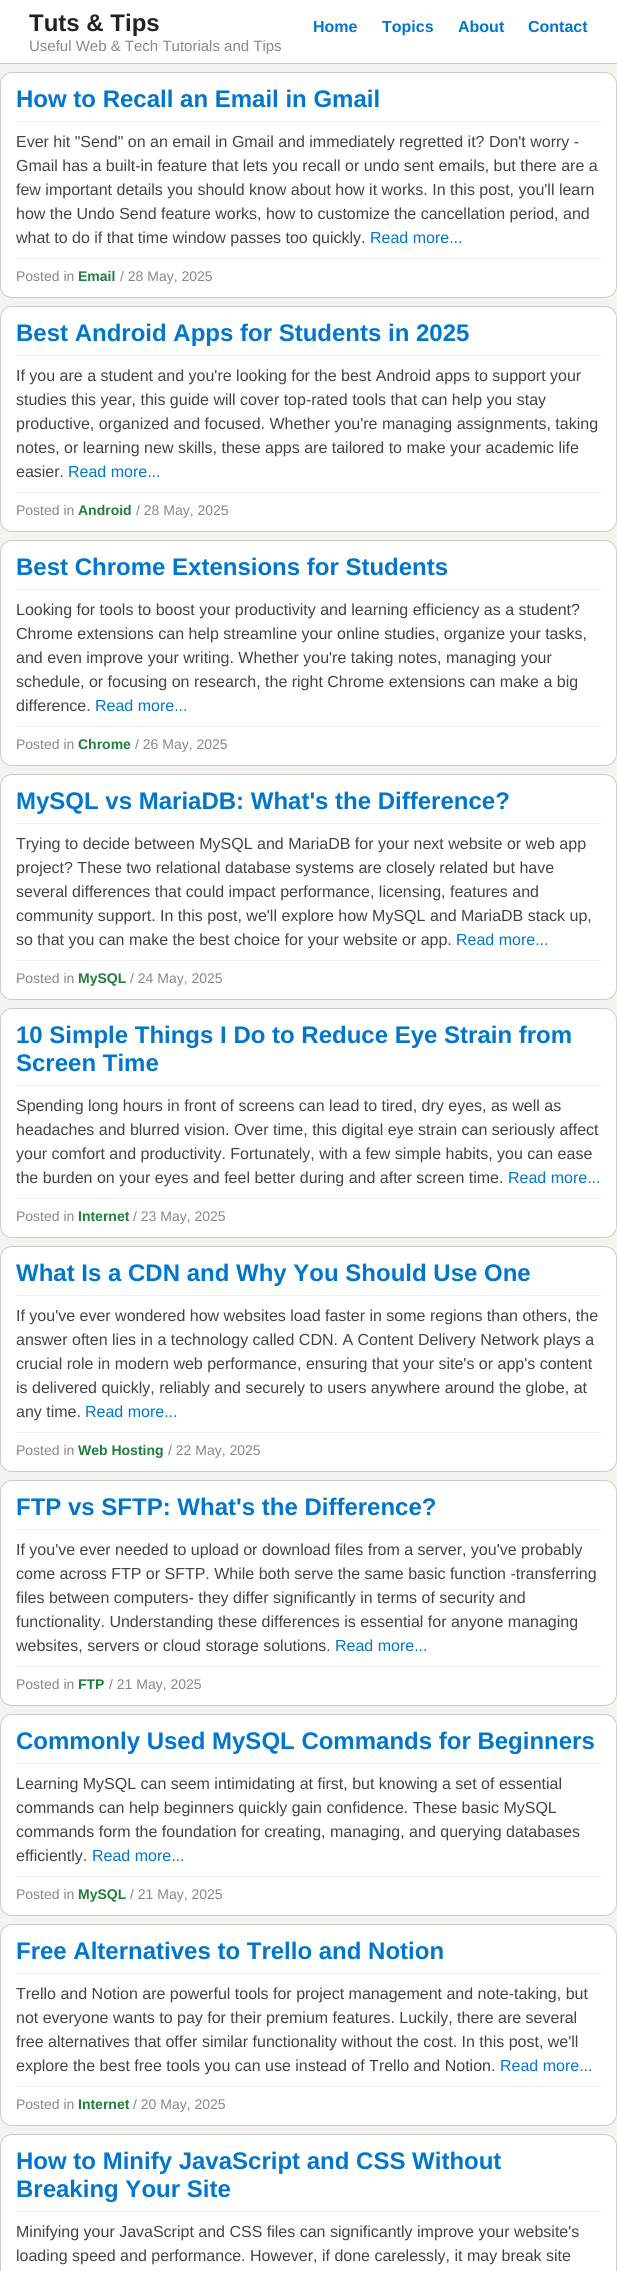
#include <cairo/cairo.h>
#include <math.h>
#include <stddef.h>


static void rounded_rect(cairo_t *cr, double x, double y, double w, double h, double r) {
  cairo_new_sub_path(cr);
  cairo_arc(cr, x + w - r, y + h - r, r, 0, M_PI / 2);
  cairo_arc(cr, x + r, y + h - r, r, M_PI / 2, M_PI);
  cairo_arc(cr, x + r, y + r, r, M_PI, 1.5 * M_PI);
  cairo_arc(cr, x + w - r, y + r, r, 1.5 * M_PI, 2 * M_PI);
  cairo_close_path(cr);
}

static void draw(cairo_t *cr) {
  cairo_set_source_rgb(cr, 246 / 255.0, 243 / 255.0, 239 / 255.0);
  cairo_paint(cr);
  cairo_set_source_rgb(cr, 1, 1, 1);
  cairo_rectangle(cr, 0, 0, 617, 63);
  cairo_fill(cr);
  cairo_set_source_rgb(cr, 204 / 255.0, 204 / 255.0, 204 / 255.0);
  cairo_rectangle(cr, 0, 63, 617, 1);
  cairo_fill(cr);
  cairo_set_source_rgb(cr, 1, 1, 1);
  rounded_rect(cr, 0.5, 72.5, 616, 225, 11.5);
  cairo_fill_preserve(cr);
  cairo_set_source_rgb(cr, 204 / 255.0, 204 / 255.0, 204 / 255.0);
  cairo_set_line_width(cr, 1);
  cairo_stroke(cr);
  cairo_set_source_rgb(cr, 238 / 255.0, 238 / 255.0, 238 / 255.0);
  cairo_rectangle(cr, 16, 121, 585, 1);
  cairo_fill(cr);
  cairo_rectangle(cr, 16, 258, 585, 1);
  cairo_fill(cr);
  cairo_set_source_rgb(cr, 1, 1, 1);
  rounded_rect(cr, 0.5, 306.5, 616, 225, 11.5);
  cairo_fill_preserve(cr);
  cairo_set_source_rgb(cr, 204 / 255.0, 204 / 255.0, 204 / 255.0);
  cairo_stroke(cr);
  cairo_set_source_rgb(cr, 238 / 255.0, 238 / 255.0, 238 / 255.0);
  cairo_rectangle(cr, 16, 355, 585, 1);
  cairo_fill(cr);
  cairo_rectangle(cr, 16, 492, 585, 1);
  cairo_fill(cr);
  cairo_set_source_rgb(cr, 1, 1, 1);
  rounded_rect(cr, 0.5, 540.5, 616, 225, 11.5);
  cairo_fill_preserve(cr);
  cairo_set_source_rgb(cr, 204 / 255.0, 204 / 255.0, 204 / 255.0);
  cairo_stroke(cr);
  cairo_set_source_rgb(cr, 238 / 255.0, 238 / 255.0, 238 / 255.0);
  cairo_rectangle(cr, 16, 589, 585, 1);
  cairo_fill(cr);
  cairo_rectangle(cr, 16, 726, 585, 1);
  cairo_fill(cr);
  cairo_set_source_rgb(cr, 1, 1, 1);
  rounded_rect(cr, 0.5, 774.5, 616, 225, 11.5);
  cairo_fill_preserve(cr);
  cairo_set_source_rgb(cr, 204 / 255.0, 204 / 255.0, 204 / 255.0);
  cairo_stroke(cr);
  cairo_set_source_rgb(cr, 238 / 255.0, 238 / 255.0, 238 / 255.0);
  cairo_rectangle(cr, 16, 823, 585, 1);
  cairo_fill(cr);
  cairo_rectangle(cr, 16, 960, 585, 1);
  cairo_fill(cr);
  cairo_set_source_rgb(cr, 1, 1, 1);
  rounded_rect(cr, 0.5, 1008.5, 616, 229, 11.5);
  cairo_fill_preserve(cr);
  cairo_set_source_rgb(cr, 204 / 255.0, 204 / 255.0, 204 / 255.0);
  cairo_stroke(cr);
  cairo_set_source_rgb(cr, 238 / 255.0, 238 / 255.0, 238 / 255.0);
  cairo_rectangle(cr, 16, 1085, 585, 1);
  cairo_fill(cr);
  cairo_rectangle(cr, 16, 1198, 585, 1);
  cairo_fill(cr);
  cairo_set_source_rgb(cr, 1, 1, 1);
  rounded_rect(cr, 0.5, 1246.5, 616, 225, 11.5);
  cairo_fill_preserve(cr);
  cairo_set_source_rgb(cr, 204 / 255.0, 204 / 255.0, 204 / 255.0);
  cairo_stroke(cr);
  cairo_set_source_rgb(cr, 238 / 255.0, 238 / 255.0, 238 / 255.0);
  cairo_rectangle(cr, 16, 1295, 585, 1);
  cairo_fill(cr);
  cairo_rectangle(cr, 16, 1432, 585, 1);
  cairo_fill(cr);
  cairo_set_source_rgb(cr, 1, 1, 1);
  rounded_rect(cr, 0.5, 1480.5, 616, 225, 11.5);
  cairo_fill_preserve(cr);
  cairo_set_source_rgb(cr, 204 / 255.0, 204 / 255.0, 204 / 255.0);
  cairo_stroke(cr);
  cairo_set_source_rgb(cr, 238 / 255.0, 238 / 255.0, 238 / 255.0);
  cairo_rectangle(cr, 16, 1529, 585, 1);
  cairo_fill(cr);
  cairo_rectangle(cr, 16, 1666, 585, 1);
  cairo_fill(cr);
  cairo_set_source_rgb(cr, 1, 1, 1);
  rounded_rect(cr, 0.5, 1714.5, 616, 201, 11.5);
  cairo_fill_preserve(cr);
  cairo_set_source_rgb(cr, 204 / 255.0, 204 / 255.0, 204 / 255.0);
  cairo_stroke(cr);
  cairo_set_source_rgb(cr, 238 / 255.0, 238 / 255.0, 238 / 255.0);
  cairo_rectangle(cr, 16, 1763, 585, 1);
  cairo_fill(cr);
  cairo_rectangle(cr, 16, 1876, 585, 1);
  cairo_fill(cr);
  cairo_set_source_rgb(cr, 1, 1, 1);
  rounded_rect(cr, 0.5, 1924.5, 616, 201, 11.5);
  cairo_fill_preserve(cr);
  cairo_set_source_rgb(cr, 204 / 255.0, 204 / 255.0, 204 / 255.0);
  cairo_stroke(cr);
  cairo_set_source_rgb(cr, 238 / 255.0, 238 / 255.0, 238 / 255.0);
  cairo_rectangle(cr, 16, 1973, 585, 1);
  cairo_fill(cr);
  cairo_rectangle(cr, 16, 2086, 585, 1);
  cairo_fill(cr);
  cairo_set_source_rgb(cr, 1, 1, 1);
  rounded_rect(cr, 0.5, 2134.5, 616, 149, 11.5);
  cairo_fill_preserve(cr);
  cairo_set_source_rgb(cr, 204 / 255.0, 204 / 255.0, 204 / 255.0);
  cairo_stroke(cr);
  cairo_set_source_rgb(cr, 238 / 255.0, 238 / 255.0, 238 / 255.0);
  cairo_rectangle(cr, 16, 2211, 585, 1);
  cairo_fill(cr);
  cairo_select_font_face(cr, "Liberation Sans", CAIRO_FONT_SLANT_NORMAL, CAIRO_FONT_WEIGHT_BOLD);
  cairo_set_font_size(cr, 24);
  cairo_set_source_rgb(cr, 34 / 255.0, 34 / 255.0, 34 / 255.0);
  cairo_move_to(cr, 29, 31);
  cairo_show_text(cr, "Tuts & Tips");
  cairo_set_font_size(cr, 16);
  cairo_set_source_rgb(cr, 0, 119 / 255.0, 204 / 255.0);
  cairo_move_to(cr, 313, 32);
  cairo_show_text(cr, "Home");
  cairo_move_to(cr, 382, 32);
  cairo_show_text(cr, "Topics");
  cairo_move_to(cr, 458, 32);
  cairo_show_text(cr, "About");
  cairo_move_to(cr, 528, 32);
  cairo_show_text(cr, "Contact");
  cairo_select_font_face(cr, "Liberation Sans", CAIRO_FONT_SLANT_NORMAL, CAIRO_FONT_WEIGHT_NORMAL);
  cairo_set_font_size(cr, 15);
  cairo_set_source_rgb(cr, 136 / 255.0, 136 / 255.0, 136 / 255.0);
  cairo_move_to(cr, 29, 51);
  cairo_show_text(cr, "Useful Web & Tech Tutorials and Tips");
  cairo_select_font_face(cr, "Liberation Sans", CAIRO_FONT_SLANT_NORMAL, CAIRO_FONT_WEIGHT_BOLD);
  cairo_set_font_size(cr, 24);
  cairo_set_source_rgb(cr, 0, 119 / 255.0, 204 / 255.0);
  cairo_move_to(cr, 16, 107);
  cairo_show_text(cr, "How to Recall an Email in Gmail");
  cairo_select_font_face(cr, "Liberation Sans", CAIRO_FONT_SLANT_NORMAL, CAIRO_FONT_WEIGHT_NORMAL);
  cairo_set_font_size(cr, 16);
  cairo_set_source_rgb(cr, 68 / 255.0, 68 / 255.0, 68 / 255.0);
  cairo_move_to(cr, 16, 147);
  cairo_show_text(cr, "Ever hit \"Send\" on an email in Gmail and immediately regretted it? Don't worry -");
  cairo_move_to(cr, 16, 171);
  cairo_show_text(cr, "Gmail has a built-in feature that lets you recall or undo sent emails, but there are a");
  cairo_move_to(cr, 16, 195);
  cairo_show_text(cr, "few important details you should know about how it works. In this post, you'll learn");
  cairo_move_to(cr, 16, 219);
  cairo_show_text(cr, "how the Undo Send feature works, how to customize the cancellation period, and");
  cairo_move_to(cr, 16, 243);
  cairo_show_text(cr, "what to do if that time window passes too quickly.");
  cairo_set_source_rgb(cr, 0, 119 / 255.0, 204 / 255.0);
  cairo_move_to(cr, 370, 243);
  cairo_show_text(cr, "Read more...");
  cairo_set_font_size(cr, 14);
  cairo_set_source_rgb(cr, 136 / 255.0, 136 / 255.0, 136 / 255.0);
  cairo_move_to(cr, 16, 281);
  cairo_show_text(cr, "Posted in");
  cairo_select_font_face(cr, "Liberation Sans", CAIRO_FONT_SLANT_NORMAL, CAIRO_FONT_WEIGHT_BOLD);
  cairo_set_source_rgb(cr, 31 / 255.0, 126 / 255.0, 58 / 255.0);
  cairo_move_to(cr, 78, 281);
  cairo_show_text(cr, "Email");
  cairo_select_font_face(cr, "Liberation Sans", CAIRO_FONT_SLANT_NORMAL, CAIRO_FONT_WEIGHT_NORMAL);
  cairo_set_source_rgb(cr, 136 / 255.0, 136 / 255.0, 136 / 255.0);
  cairo_move_to(cr, 120, 281);
  cairo_show_text(cr, "/ 28 May, 2025");
  cairo_select_font_face(cr, "Liberation Sans", CAIRO_FONT_SLANT_NORMAL, CAIRO_FONT_WEIGHT_BOLD);
  cairo_set_font_size(cr, 24);
  cairo_set_source_rgb(cr, 0, 119 / 255.0, 204 / 255.0);
  cairo_move_to(cr, 16, 341);
  cairo_show_text(cr, "Best Android Apps for Students in 2025");
  cairo_select_font_face(cr, "Liberation Sans", CAIRO_FONT_SLANT_NORMAL, CAIRO_FONT_WEIGHT_NORMAL);
  cairo_set_font_size(cr, 16);
  cairo_set_source_rgb(cr, 68 / 255.0, 68 / 255.0, 68 / 255.0);
  cairo_move_to(cr, 16, 381);
  cairo_show_text(cr, "If you are a student and you're looking for the best Android apps to support your");
  cairo_move_to(cr, 16, 405);
  cairo_show_text(cr, "studies this year, this guide will cover top-rated tools that can help you stay");
  cairo_move_to(cr, 16, 429);
  cairo_show_text(cr, "productive, organized and focused. Whether you're managing assignments, taking");
  cairo_move_to(cr, 16, 453);
  cairo_show_text(cr, "notes, or learning new skills, these apps are tailored to make your academic life");
  cairo_move_to(cr, 16, 477);
  cairo_show_text(cr, "easier.");
  cairo_set_source_rgb(cr, 0, 119 / 255.0, 204 / 255.0);
  cairo_move_to(cr, 68, 477);
  cairo_show_text(cr, "Read more...");
  cairo_set_font_size(cr, 14);
  cairo_set_source_rgb(cr, 136 / 255.0, 136 / 255.0, 136 / 255.0);
  cairo_move_to(cr, 16, 515);
  cairo_show_text(cr, "Posted in");
  cairo_select_font_face(cr, "Liberation Sans", CAIRO_FONT_SLANT_NORMAL, CAIRO_FONT_WEIGHT_BOLD);
  cairo_set_source_rgb(cr, 31 / 255.0, 126 / 255.0, 58 / 255.0);
  cairo_move_to(cr, 78, 515);
  cairo_show_text(cr, "Android");
  cairo_select_font_face(cr, "Liberation Sans", CAIRO_FONT_SLANT_NORMAL, CAIRO_FONT_WEIGHT_NORMAL);
  cairo_set_source_rgb(cr, 136 / 255.0, 136 / 255.0, 136 / 255.0);
  cairo_move_to(cr, 136, 515);
  cairo_show_text(cr, "/ 28 May, 2025");
  cairo_select_font_face(cr, "Liberation Sans", CAIRO_FONT_SLANT_NORMAL, CAIRO_FONT_WEIGHT_BOLD);
  cairo_set_font_size(cr, 24);
  cairo_set_source_rgb(cr, 0, 119 / 255.0, 204 / 255.0);
  cairo_move_to(cr, 16, 575);
  cairo_show_text(cr, "Best Chrome Extensions for Students");
  cairo_select_font_face(cr, "Liberation Sans", CAIRO_FONT_SLANT_NORMAL, CAIRO_FONT_WEIGHT_NORMAL);
  cairo_set_font_size(cr, 16);
  cairo_set_source_rgb(cr, 68 / 255.0, 68 / 255.0, 68 / 255.0);
  cairo_move_to(cr, 16, 615);
  cairo_show_text(cr, "Looking for tools to boost your productivity and learning efficiency as a student?");
  cairo_move_to(cr, 16, 639);
  cairo_show_text(cr, "Chrome extensions can help streamline your online studies, organize your tasks,");
  cairo_move_to(cr, 16, 663);
  cairo_show_text(cr, "and even improve your writing. Whether you're taking notes, managing your");
  cairo_move_to(cr, 16, 687);
  cairo_show_text(cr, "schedule, or focusing on research, the right Chrome extensions can make a big");
  cairo_move_to(cr, 16, 711);
  cairo_show_text(cr, "difference.");
  cairo_set_source_rgb(cr, 0, 119 / 255.0, 204 / 255.0);
  cairo_move_to(cr, 95, 711);
  cairo_show_text(cr, "Read more...");
  cairo_set_font_size(cr, 14);
  cairo_set_source_rgb(cr, 136 / 255.0, 136 / 255.0, 136 / 255.0);
  cairo_move_to(cr, 16, 749);
  cairo_show_text(cr, "Posted in");
  cairo_select_font_face(cr, "Liberation Sans", CAIRO_FONT_SLANT_NORMAL, CAIRO_FONT_WEIGHT_BOLD);
  cairo_set_source_rgb(cr, 31 / 255.0, 126 / 255.0, 58 / 255.0);
  cairo_move_to(cr, 78, 749);
  cairo_show_text(cr, "Chrome");
  cairo_select_font_face(cr, "Liberation Sans", CAIRO_FONT_SLANT_NORMAL, CAIRO_FONT_WEIGHT_NORMAL);
  cairo_set_source_rgb(cr, 136 / 255.0, 136 / 255.0, 136 / 255.0);
  cairo_move_to(cr, 135, 749);
  cairo_show_text(cr, "/ 26 May, 2025");
  cairo_select_font_face(cr, "Liberation Sans", CAIRO_FONT_SLANT_NORMAL, CAIRO_FONT_WEIGHT_BOLD);
  cairo_set_font_size(cr, 24);
  cairo_set_source_rgb(cr, 0, 119 / 255.0, 204 / 255.0);
  cairo_move_to(cr, 16, 809);
  cairo_show_text(cr, "MySQL vs MariaDB: What's the Difference?");
  cairo_select_font_face(cr, "Liberation Sans", CAIRO_FONT_SLANT_NORMAL, CAIRO_FONT_WEIGHT_NORMAL);
  cairo_set_font_size(cr, 16);
  cairo_set_source_rgb(cr, 68 / 255.0, 68 / 255.0, 68 / 255.0);
  cairo_move_to(cr, 16, 849);
  cairo_show_text(cr, "Trying to decide between MySQL and MariaDB for your next website or web app");
  cairo_move_to(cr, 16, 873);
  cairo_show_text(cr, "project? These two relational database systems are closely related but have");
  cairo_move_to(cr, 16, 897);
  cairo_show_text(cr, "several differences that could impact performance, licensing, features and");
  cairo_move_to(cr, 16, 921);
  cairo_show_text(cr, "community support. In this post, we'll explore how MySQL and MariaDB stack up,");
  cairo_move_to(cr, 16, 945);
  cairo_show_text(cr, "so that you can make the best choice for your website or app.");
  cairo_set_source_rgb(cr, 0, 119 / 255.0, 204 / 255.0);
  cairo_move_to(cr, 456, 945);
  cairo_show_text(cr, "Read more...");
  cairo_set_font_size(cr, 14);
  cairo_set_source_rgb(cr, 136 / 255.0, 136 / 255.0, 136 / 255.0);
  cairo_move_to(cr, 16, 983);
  cairo_show_text(cr, "Posted in");
  cairo_select_font_face(cr, "Liberation Sans", CAIRO_FONT_SLANT_NORMAL, CAIRO_FONT_WEIGHT_BOLD);
  cairo_set_source_rgb(cr, 31 / 255.0, 126 / 255.0, 58 / 255.0);
  cairo_move_to(cr, 78, 983);
  cairo_show_text(cr, "MySQL");
  cairo_select_font_face(cr, "Liberation Sans", CAIRO_FONT_SLANT_NORMAL, CAIRO_FONT_WEIGHT_NORMAL);
  cairo_set_source_rgb(cr, 136 / 255.0, 136 / 255.0, 136 / 255.0);
  cairo_move_to(cr, 130, 983);
  cairo_show_text(cr, "/ 24 May, 2025");
  cairo_select_font_face(cr, "Liberation Sans", CAIRO_FONT_SLANT_NORMAL, CAIRO_FONT_WEIGHT_BOLD);
  cairo_set_font_size(cr, 24);
  cairo_set_source_rgb(cr, 0, 119 / 255.0, 204 / 255.0);
  cairo_move_to(cr, 16, 1043);
  cairo_show_text(cr, "10 Simple Things I Do to Reduce Eye Strain from");
  cairo_move_to(cr, 16, 1071);
  cairo_show_text(cr, "Screen Time");
  cairo_select_font_face(cr, "Liberation Sans", CAIRO_FONT_SLANT_NORMAL, CAIRO_FONT_WEIGHT_NORMAL);
  cairo_set_font_size(cr, 16);
  cairo_set_source_rgb(cr, 68 / 255.0, 68 / 255.0, 68 / 255.0);
  cairo_move_to(cr, 16, 1111);
  cairo_show_text(cr, "Spending long hours in front of screens can lead to tired, dry eyes, as well as");
  cairo_move_to(cr, 16, 1135);
  cairo_show_text(cr, "headaches and blurred vision. Over time, this digital eye strain can seriously affect");
  cairo_move_to(cr, 16, 1159);
  cairo_show_text(cr, "your comfort and productivity. Fortunately, with a few simple habits, you can ease");
  cairo_move_to(cr, 16, 1183);
  cairo_show_text(cr, "the burden on your eyes and feel better during and after screen time.");
  cairo_set_source_rgb(cr, 0, 119 / 255.0, 204 / 255.0);
  cairo_move_to(cr, 508, 1183);
  cairo_show_text(cr, "Read more...");
  cairo_set_font_size(cr, 14);
  cairo_set_source_rgb(cr, 136 / 255.0, 136 / 255.0, 136 / 255.0);
  cairo_move_to(cr, 16, 1221);
  cairo_show_text(cr, "Posted in");
  cairo_select_font_face(cr, "Liberation Sans", CAIRO_FONT_SLANT_NORMAL, CAIRO_FONT_WEIGHT_BOLD);
  cairo_set_source_rgb(cr, 31 / 255.0, 126 / 255.0, 58 / 255.0);
  cairo_move_to(cr, 78, 1221);
  cairo_show_text(cr, "Internet");
  cairo_select_font_face(cr, "Liberation Sans", CAIRO_FONT_SLANT_NORMAL, CAIRO_FONT_WEIGHT_NORMAL);
  cairo_set_source_rgb(cr, 136 / 255.0, 136 / 255.0, 136 / 255.0);
  cairo_move_to(cr, 133, 1221);
  cairo_show_text(cr, "/ 23 May, 2025");
  cairo_select_font_face(cr, "Liberation Sans", CAIRO_FONT_SLANT_NORMAL, CAIRO_FONT_WEIGHT_BOLD);
  cairo_set_font_size(cr, 24);
  cairo_set_source_rgb(cr, 0, 119 / 255.0, 204 / 255.0);
  cairo_move_to(cr, 16, 1281);
  cairo_show_text(cr, "What Is a CDN and Why You Should Use One");
  cairo_select_font_face(cr, "Liberation Sans", CAIRO_FONT_SLANT_NORMAL, CAIRO_FONT_WEIGHT_NORMAL);
  cairo_set_font_size(cr, 16);
  cairo_set_source_rgb(cr, 68 / 255.0, 68 / 255.0, 68 / 255.0);
  cairo_move_to(cr, 16, 1321);
  cairo_show_text(cr, "If you've ever wondered how websites load faster in some regions than others, the");
  cairo_move_to(cr, 16, 1345);
  cairo_show_text(cr, "answer often lies in a technology called CDN. A Content Delivery Network plays a");
  cairo_move_to(cr, 16, 1369);
  cairo_show_text(cr, "crucial role in modern web performance, ensuring that your site's or app's content");
  cairo_move_to(cr, 16, 1393);
  cairo_show_text(cr, "is delivered quickly, reliably and securely to users anywhere around the globe, at");
  cairo_move_to(cr, 16, 1417);
  cairo_show_text(cr, "any time.");
  cairo_set_source_rgb(cr, 0, 119 / 255.0, 204 / 255.0);
  cairo_move_to(cr, 85, 1417);
  cairo_show_text(cr, "Read more...");
  cairo_set_font_size(cr, 14);
  cairo_set_source_rgb(cr, 136 / 255.0, 136 / 255.0, 136 / 255.0);
  cairo_move_to(cr, 16, 1455);
  cairo_show_text(cr, "Posted in");
  cairo_select_font_face(cr, "Liberation Sans", CAIRO_FONT_SLANT_NORMAL, CAIRO_FONT_WEIGHT_BOLD);
  cairo_set_source_rgb(cr, 31 / 255.0, 126 / 255.0, 58 / 255.0);
  cairo_move_to(cr, 78, 1455);
  cairo_show_text(cr, "Web Hosting");
  cairo_select_font_face(cr, "Liberation Sans", CAIRO_FONT_SLANT_NORMAL, CAIRO_FONT_WEIGHT_NORMAL);
  cairo_set_source_rgb(cr, 136 / 255.0, 136 / 255.0, 136 / 255.0);
  cairo_move_to(cr, 168, 1455);
  cairo_show_text(cr, "/ 22 May, 2025");
  cairo_select_font_face(cr, "Liberation Sans", CAIRO_FONT_SLANT_NORMAL, CAIRO_FONT_WEIGHT_BOLD);
  cairo_set_font_size(cr, 24);
  cairo_set_source_rgb(cr, 0, 119 / 255.0, 204 / 255.0);
  cairo_move_to(cr, 16, 1515);
  cairo_show_text(cr, "FTP vs SFTP: What's the Difference?");
  cairo_select_font_face(cr, "Liberation Sans", CAIRO_FONT_SLANT_NORMAL, CAIRO_FONT_WEIGHT_NORMAL);
  cairo_set_font_size(cr, 16);
  cairo_set_source_rgb(cr, 68 / 255.0, 68 / 255.0, 68 / 255.0);
  cairo_move_to(cr, 16, 1555);
  cairo_show_text(cr, "If you've ever needed to upload or download files from a server, you've probably");
  cairo_move_to(cr, 16, 1579);
  cairo_show_text(cr, "come across FTP or SFTP. While both serve the same basic function -transferring");
  cairo_move_to(cr, 16, 1603);
  cairo_show_text(cr, "files between computers- they differ significantly in terms of security and");
  cairo_move_to(cr, 16, 1627);
  cairo_show_text(cr, "functionality. Understanding these differences is essential for anyone managing");
  cairo_move_to(cr, 16, 1651);
  cairo_show_text(cr, "websites, servers or cloud storage solutions.");
  cairo_set_source_rgb(cr, 0, 119 / 255.0, 204 / 255.0);
  cairo_move_to(cr, 335, 1651);
  cairo_show_text(cr, "Read more...");
  cairo_set_font_size(cr, 14);
  cairo_set_source_rgb(cr, 136 / 255.0, 136 / 255.0, 136 / 255.0);
  cairo_move_to(cr, 16, 1689);
  cairo_show_text(cr, "Posted in");
  cairo_select_font_face(cr, "Liberation Sans", CAIRO_FONT_SLANT_NORMAL, CAIRO_FONT_WEIGHT_BOLD);
  cairo_set_source_rgb(cr, 31 / 255.0, 126 / 255.0, 58 / 255.0);
  cairo_move_to(cr, 78, 1689);
  cairo_show_text(cr, "FTP");
  cairo_select_font_face(cr, "Liberation Sans", CAIRO_FONT_SLANT_NORMAL, CAIRO_FONT_WEIGHT_NORMAL);
  cairo_set_source_rgb(cr, 136 / 255.0, 136 / 255.0, 136 / 255.0);
  cairo_move_to(cr, 109, 1689);
  cairo_show_text(cr, "/ 21 May, 2025");
  cairo_select_font_face(cr, "Liberation Sans", CAIRO_FONT_SLANT_NORMAL, CAIRO_FONT_WEIGHT_BOLD);
  cairo_set_font_size(cr, 24);
  cairo_set_source_rgb(cr, 0, 119 / 255.0, 204 / 255.0);
  cairo_move_to(cr, 16, 1749);
  cairo_show_text(cr, "Commonly Used MySQL Commands for Beginners");
  cairo_select_font_face(cr, "Liberation Sans", CAIRO_FONT_SLANT_NORMAL, CAIRO_FONT_WEIGHT_NORMAL);
  cairo_set_font_size(cr, 16);
  cairo_set_source_rgb(cr, 68 / 255.0, 68 / 255.0, 68 / 255.0);
  cairo_move_to(cr, 16, 1789);
  cairo_show_text(cr, "Learning MySQL can seem intimidating at first, but knowing a set of essential");
  cairo_move_to(cr, 16, 1813);
  cairo_show_text(cr, "commands can help beginners quickly gain confidence. These basic MySQL");
  cairo_move_to(cr, 16, 1837);
  cairo_show_text(cr, "commands form the foundation for creating, managing, and querying databases");
  cairo_move_to(cr, 16, 1861);
  cairo_show_text(cr, "efficiently.");
  cairo_set_source_rgb(cr, 0, 119 / 255.0, 204 / 255.0);
  cairo_move_to(cr, 92, 1861);
  cairo_show_text(cr, "Read more...");
  cairo_set_font_size(cr, 14);
  cairo_set_source_rgb(cr, 136 / 255.0, 136 / 255.0, 136 / 255.0);
  cairo_move_to(cr, 16, 1899);
  cairo_show_text(cr, "Posted in");
  cairo_select_font_face(cr, "Liberation Sans", CAIRO_FONT_SLANT_NORMAL, CAIRO_FONT_WEIGHT_BOLD);
  cairo_set_source_rgb(cr, 31 / 255.0, 126 / 255.0, 58 / 255.0);
  cairo_move_to(cr, 78, 1899);
  cairo_show_text(cr, "MySQL");
  cairo_select_font_face(cr, "Liberation Sans", CAIRO_FONT_SLANT_NORMAL, CAIRO_FONT_WEIGHT_NORMAL);
  cairo_set_source_rgb(cr, 136 / 255.0, 136 / 255.0, 136 / 255.0);
  cairo_move_to(cr, 130, 1899);
  cairo_show_text(cr, "/ 21 May, 2025");
  cairo_select_font_face(cr, "Liberation Sans", CAIRO_FONT_SLANT_NORMAL, CAIRO_FONT_WEIGHT_BOLD);
  cairo_set_font_size(cr, 24);
  cairo_set_source_rgb(cr, 0, 119 / 255.0, 204 / 255.0);
  cairo_move_to(cr, 16, 1959);
  cairo_show_text(cr, "Free Alternatives to Trello and Notion");
  cairo_select_font_face(cr, "Liberation Sans", CAIRO_FONT_SLANT_NORMAL, CAIRO_FONT_WEIGHT_NORMAL);
  cairo_set_font_size(cr, 16);
  cairo_set_source_rgb(cr, 68 / 255.0, 68 / 255.0, 68 / 255.0);
  cairo_move_to(cr, 16, 1999);
  cairo_show_text(cr, "Trello and Notion are powerful tools for project management and note-taking, but");
  cairo_move_to(cr, 16, 2023);
  cairo_show_text(cr, "not everyone wants to pay for their premium features. Luckily, there are several");
  cairo_move_to(cr, 16, 2047);
  cairo_show_text(cr, "free alternatives that offer similar functionality without the cost. In this post, we'll");
  cairo_move_to(cr, 16, 2071);
  cairo_show_text(cr, "explore the best free tools you can use instead of Trello and Notion.");
  cairo_set_source_rgb(cr, 0, 119 / 255.0, 204 / 255.0);
  cairo_move_to(cr, 500, 2071);
  cairo_show_text(cr, "Read more...");
  cairo_set_font_size(cr, 14);
  cairo_set_source_rgb(cr, 136 / 255.0, 136 / 255.0, 136 / 255.0);
  cairo_move_to(cr, 16, 2109);
  cairo_show_text(cr, "Posted in");
  cairo_select_font_face(cr, "Liberation Sans", CAIRO_FONT_SLANT_NORMAL, CAIRO_FONT_WEIGHT_BOLD);
  cairo_set_source_rgb(cr, 31 / 255.0, 126 / 255.0, 58 / 255.0);
  cairo_move_to(cr, 78, 2109);
  cairo_show_text(cr, "Internet");
  cairo_select_font_face(cr, "Liberation Sans", CAIRO_FONT_SLANT_NORMAL, CAIRO_FONT_WEIGHT_NORMAL);
  cairo_set_source_rgb(cr, 136 / 255.0, 136 / 255.0, 136 / 255.0);
  cairo_move_to(cr, 133, 2109);
  cairo_show_text(cr, "/ 20 May, 2025");
  cairo_select_font_face(cr, "Liberation Sans", CAIRO_FONT_SLANT_NORMAL, CAIRO_FONT_WEIGHT_BOLD);
  cairo_set_font_size(cr, 24);
  cairo_set_source_rgb(cr, 0, 119 / 255.0, 204 / 255.0);
  cairo_move_to(cr, 16, 2169);
  cairo_show_text(cr, "How to Minify JavaScript and CSS Without");
  cairo_move_to(cr, 16, 2197);
  cairo_show_text(cr, "Breaking Your Site");
  cairo_select_font_face(cr, "Liberation Sans", CAIRO_FONT_SLANT_NORMAL, CAIRO_FONT_WEIGHT_NORMAL);
  cairo_set_font_size(cr, 16);
  cairo_set_source_rgb(cr, 68 / 255.0, 68 / 255.0, 68 / 255.0);
  cairo_move_to(cr, 16, 2237);
  cairo_show_text(cr, "Minifying your JavaScript and CSS files can significantly improve your website's");
  cairo_move_to(cr, 16, 2261);
  cairo_show_text(cr, "loading speed and performance. However, if done carelessly, it may break site");
}

int main(void) {
  cairo_surface_t *surface = cairo_image_surface_create(CAIRO_FORMAT_RGB24, 617, 2271);
  cairo_t *cr = cairo_create(surface);
  cairo_font_options_t *options = cairo_font_options_create();
  cairo_font_options_set_hint_metrics(options, CAIRO_HINT_METRICS_OFF);
  cairo_font_options_set_hint_style(options, CAIRO_HINT_STYLE_NONE);
  cairo_set_font_options(cr, options);
  cairo_set_miter_limit(cr, 4);
  draw(cr);
  cairo_surface_write_to_png(surface, "out.png");
  cairo_font_options_destroy(options);
  cairo_destroy(cr);
  cairo_surface_destroy(surface);
  return 0;
}
